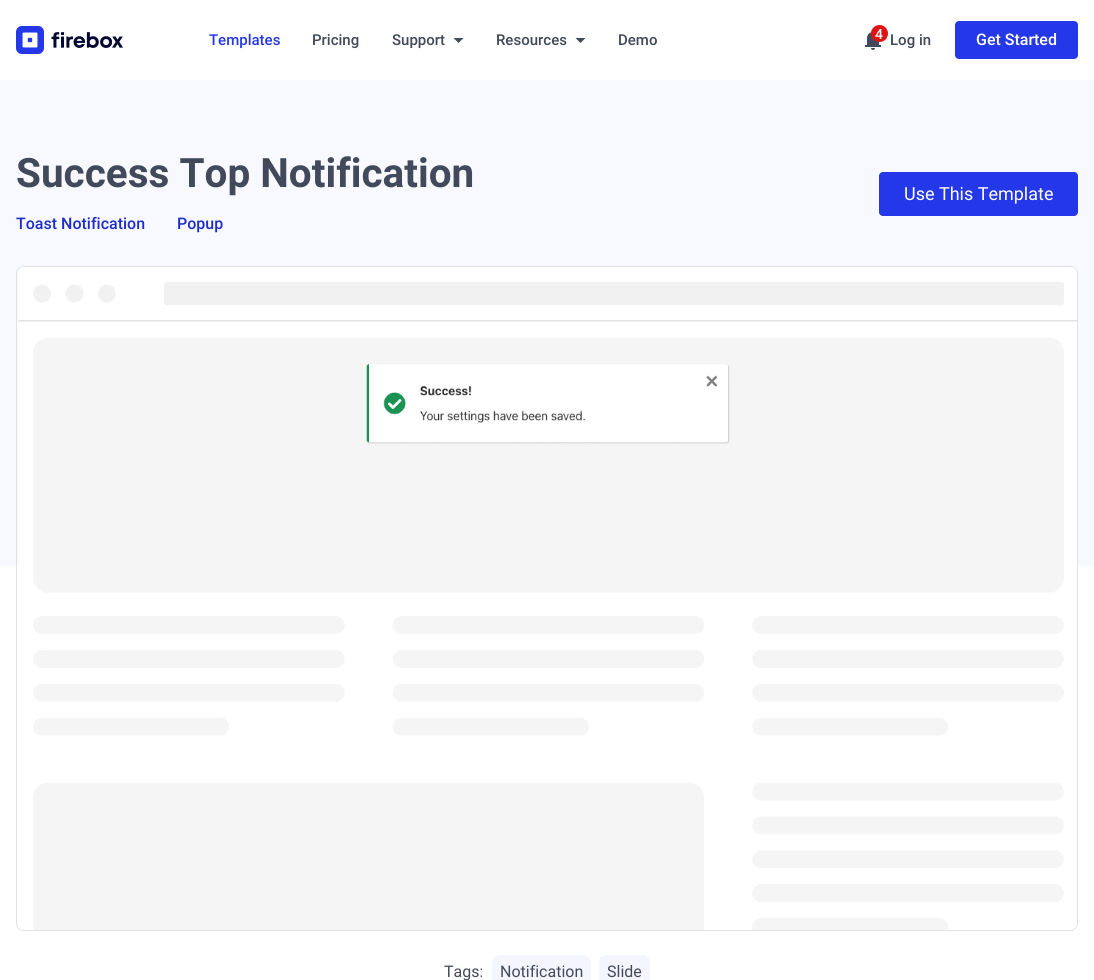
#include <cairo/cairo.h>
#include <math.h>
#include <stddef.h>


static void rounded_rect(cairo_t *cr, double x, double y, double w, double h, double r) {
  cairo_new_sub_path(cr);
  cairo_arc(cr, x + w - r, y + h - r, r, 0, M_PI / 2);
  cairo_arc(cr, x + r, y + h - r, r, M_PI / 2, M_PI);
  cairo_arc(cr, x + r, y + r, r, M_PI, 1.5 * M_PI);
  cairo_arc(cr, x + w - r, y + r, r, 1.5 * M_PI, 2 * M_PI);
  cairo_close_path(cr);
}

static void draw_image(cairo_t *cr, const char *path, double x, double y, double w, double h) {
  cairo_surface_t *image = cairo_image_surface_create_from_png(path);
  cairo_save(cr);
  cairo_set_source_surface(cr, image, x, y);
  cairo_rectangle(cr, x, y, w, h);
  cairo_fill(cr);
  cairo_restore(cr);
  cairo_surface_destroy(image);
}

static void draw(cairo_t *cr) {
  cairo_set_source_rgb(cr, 1, 1, 1);
  cairo_paint(cr);
  draw_image(cr, "images/1.png", 16, 26, 107, 28);
  cairo_set_source_rgb(cr, 65 / 255.0, 73 / 255.0, 91 / 255.0);
  cairo_new_path(cr);
  cairo_move_to(cr, 458.5, 43);
  cairo_line_to(cr, 453.5, 38);
  cairo_line_to(cr, 463.5, 38);
  cairo_close_path(cr);
  cairo_fill(cr);
  cairo_new_path(cr);
  cairo_move_to(cr, 580.5, 43);
  cairo_line_to(cr, 575.5, 38);
  cairo_line_to(cr, 585.5, 38);
  cairo_close_path(cr);
  cairo_fill(cr);
  draw_image(cr, "images/2.png", 865, 30, 16, 20);
  cairo_set_source_rgb(cr, 224 / 255.0, 19 / 255.0, 19 / 255.0);
  cairo_arc(cr, 879.5, 33.5, 8.5, 0, 2 * M_PI);
  cairo_fill(cr);
  cairo_set_source_rgb(cr, 36 / 255.0, 56 / 255.0, 233 / 255.0);
  rounded_rect(cr, 955, 21, 123, 38, 4);
  cairo_fill(cr);
  cairo_set_source_rgb(cr, 248 / 255.0, 249 / 255.0, 254 / 255.0);
  cairo_rectangle(cr, 0, 80, 1094, 486);
  cairo_fill(cr);
  cairo_set_source_rgb(cr, 36 / 255.0, 56 / 255.0, 233 / 255.0);
  rounded_rect(cr, 879, 172, 199, 44, 4);
  cairo_fill(cr);
  rounded_rect(cr, 16.5, 266.5, 1061, 664, 7.5);
  cairo_set_source_rgb(cr, 225 / 255.0, 225 / 255.0, 225 / 255.0);
  cairo_set_line_width(cr, 1);
  cairo_stroke(cr);
  draw_image(cr, "images/3.png", 18, 267, 1059, 663);
  cairo_set_source_rgb(cr, 244 / 255.0, 245 / 255.0, 254 / 255.0);
  rounded_rect(cr, 492, 955, 99, 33, 8);
  cairo_fill(cr);
  rounded_rect(cr, 599, 955, 51, 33, 8);
  cairo_fill(cr);
  cairo_select_font_face(cr, "Roboto Medium", CAIRO_FONT_SLANT_NORMAL, CAIRO_FONT_WEIGHT_NORMAL);
  cairo_set_font_size(cr, 15);
  cairo_set_source_rgb(cr, 36 / 255.0, 56 / 255.0, 233 / 255.0);
  cairo_move_to(cr, 209, 45);
  cairo_show_text(cr, "Templates");
  cairo_set_source_rgb(cr, 65 / 255.0, 73 / 255.0, 91 / 255.0);
  cairo_move_to(cr, 312, 45);
  cairo_show_text(cr, "Pricing");
  cairo_move_to(cr, 392, 45);
  cairo_show_text(cr, "Support");
  cairo_move_to(cr, 496, 45);
  cairo_show_text(cr, "Resources");
  cairo_move_to(cr, 618, 45);
  cairo_show_text(cr, "Demo");
  cairo_set_font_size(cr, 14);
  cairo_set_source_rgb(cr, 1, 1, 1);
  cairo_move_to(cr, 875, 39);
  cairo_show_text(cr, "4");
  cairo_set_font_size(cr, 15);
  cairo_set_source_rgb(cr, 65 / 255.0, 73 / 255.0, 91 / 255.0);
  cairo_move_to(cr, 890, 45);
  cairo_show_text(cr, "Log in");
  cairo_set_font_size(cr, 16);
  cairo_set_source_rgb(cr, 1, 1, 1);
  cairo_move_to(cr, 976, 45);
  cairo_show_text(cr, "Get Started");
  cairo_select_font_face(cr, "Roboto", CAIRO_FONT_SLANT_NORMAL, CAIRO_FONT_WEIGHT_BOLD);
  cairo_set_font_size(cr, 40.5);
  cairo_set_source_rgb(cr, 65 / 255.0, 73 / 255.0, 91 / 255.0);
  cairo_move_to(cr, 16, 187);
  cairo_show_text(cr, "Success Top Notification");
  cairo_select_font_face(cr, "Roboto Medium", CAIRO_FONT_SLANT_NORMAL, CAIRO_FONT_WEIGHT_NORMAL);
  cairo_set_font_size(cr, 16);
  cairo_set_source_rgb(cr, 29 / 255.0, 46 / 255.0, 202 / 255.0);
  cairo_move_to(cr, 16, 229);
  cairo_show_text(cr, "Toast Notification");
  cairo_move_to(cr, 177, 229);
  cairo_show_text(cr, "Popup");
  cairo_select_font_face(cr, "Roboto", CAIRO_FONT_SLANT_NORMAL, CAIRO_FONT_WEIGHT_NORMAL);
  cairo_set_font_size(cr, 18);
  cairo_set_source_rgb(cr, 1, 1, 1);
  cairo_move_to(cr, 904, 200);
  cairo_show_text(cr, "Use This Template");
  cairo_set_font_size(cr, 16);
  cairo_set_source_rgb(cr, 65 / 255.0, 73 / 255.0, 91 / 255.0);
  cairo_move_to(cr, 444, 977);
  cairo_show_text(cr, "Tags:");
  cairo_move_to(cr, 500, 977);
  cairo_show_text(cr, "Notification");
  cairo_move_to(cr, 607, 977);
  cairo_show_text(cr, "Slide");
}

int main(void) {
  cairo_surface_t *surface = cairo_image_surface_create(CAIRO_FORMAT_RGB24, 1094, 980);
  cairo_t *cr = cairo_create(surface);
  cairo_font_options_t *options = cairo_font_options_create();
  cairo_font_options_set_hint_metrics(options, CAIRO_HINT_METRICS_OFF);
  cairo_font_options_set_hint_style(options, CAIRO_HINT_STYLE_NONE);
  cairo_set_font_options(cr, options);
  cairo_set_miter_limit(cr, 4);
  draw(cr);
  cairo_surface_write_to_png(surface, "out.png");
  cairo_font_options_destroy(options);
  cairo_destroy(cr);
  cairo_surface_destroy(surface);
  return 0;
}
